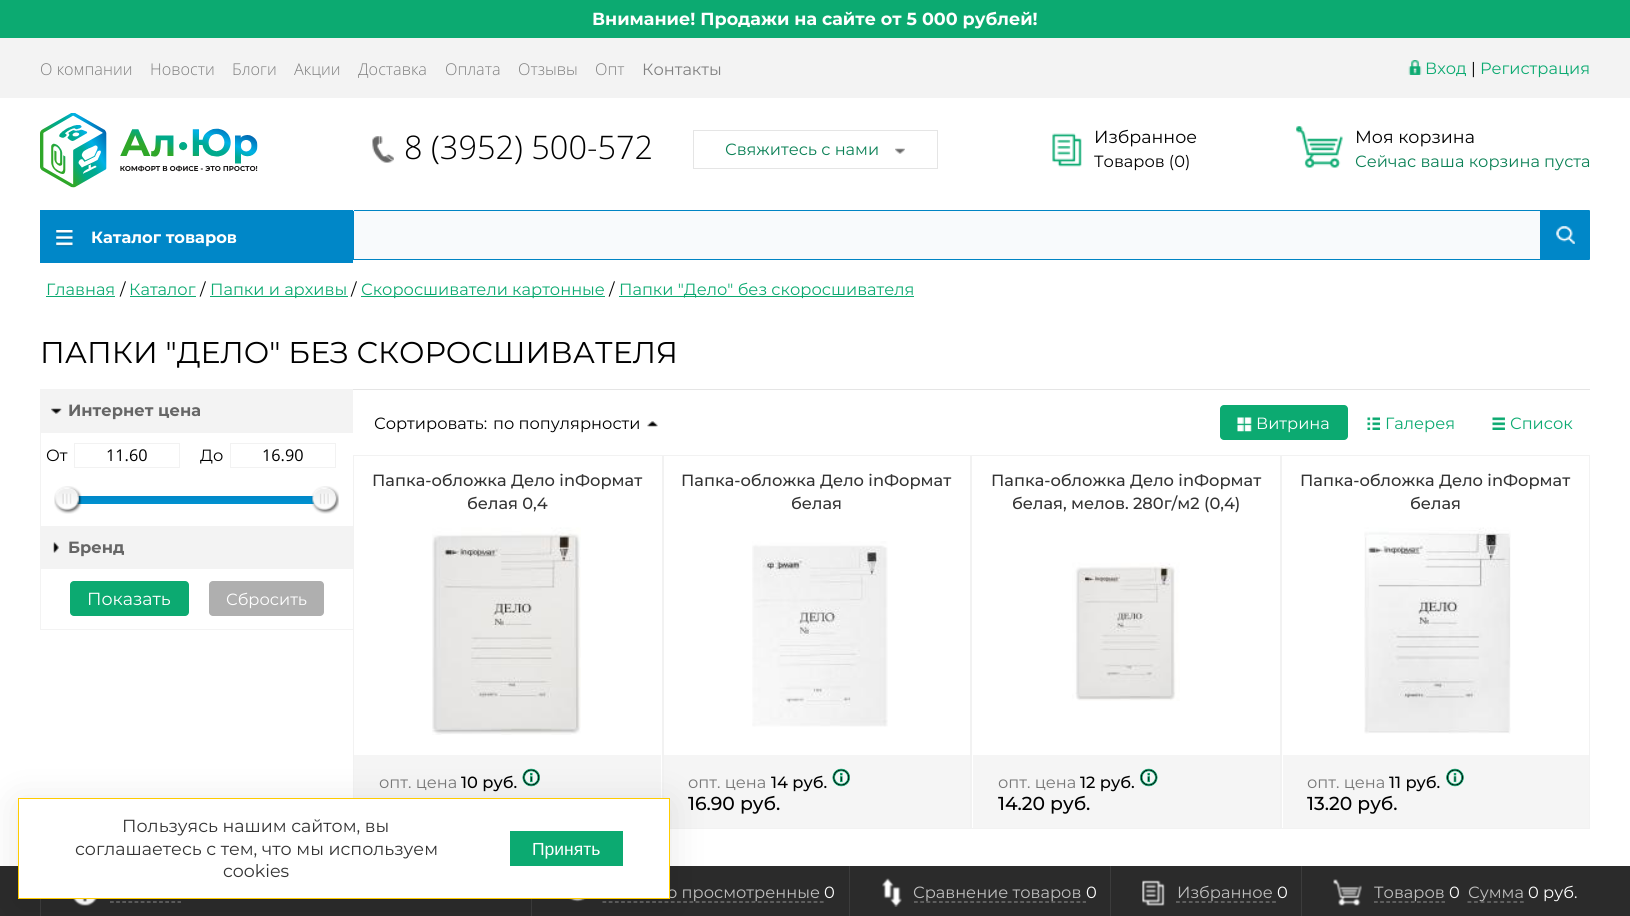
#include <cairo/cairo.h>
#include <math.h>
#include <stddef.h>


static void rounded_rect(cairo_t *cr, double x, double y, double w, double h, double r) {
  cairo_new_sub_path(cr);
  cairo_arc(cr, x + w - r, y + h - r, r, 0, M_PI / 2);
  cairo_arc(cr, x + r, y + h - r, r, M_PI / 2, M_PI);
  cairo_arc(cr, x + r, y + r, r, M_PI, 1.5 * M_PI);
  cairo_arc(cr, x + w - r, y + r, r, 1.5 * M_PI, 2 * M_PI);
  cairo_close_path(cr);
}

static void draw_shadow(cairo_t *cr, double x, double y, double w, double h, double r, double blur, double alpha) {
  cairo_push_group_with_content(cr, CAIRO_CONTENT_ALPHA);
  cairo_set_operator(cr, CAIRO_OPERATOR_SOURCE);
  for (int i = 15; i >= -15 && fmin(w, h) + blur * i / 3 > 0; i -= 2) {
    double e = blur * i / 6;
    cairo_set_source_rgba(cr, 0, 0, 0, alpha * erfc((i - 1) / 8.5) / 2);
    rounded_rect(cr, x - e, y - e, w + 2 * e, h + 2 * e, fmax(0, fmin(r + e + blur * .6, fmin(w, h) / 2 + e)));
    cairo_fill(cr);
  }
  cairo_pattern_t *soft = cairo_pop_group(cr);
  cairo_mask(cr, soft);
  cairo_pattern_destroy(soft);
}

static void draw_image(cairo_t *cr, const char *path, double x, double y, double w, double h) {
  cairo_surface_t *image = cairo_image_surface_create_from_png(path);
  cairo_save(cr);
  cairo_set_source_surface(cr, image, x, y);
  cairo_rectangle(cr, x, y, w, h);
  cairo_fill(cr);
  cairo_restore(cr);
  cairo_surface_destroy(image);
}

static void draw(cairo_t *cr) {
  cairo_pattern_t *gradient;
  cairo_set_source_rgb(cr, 1, 1, 1);
  cairo_paint(cr);
  cairo_set_source_rgb(cr, 12 / 255.0, 170 / 255.0, 113 / 255.0);
  cairo_rectangle(cr, 0, 0, 1630, 38);
  cairo_fill(cr);
  cairo_set_source_rgb(cr, 243 / 255.0, 243 / 255.0, 243 / 255.0);
  cairo_rectangle(cr, 0, 38, 1630, 60);
  cairo_fill(cr);
  draw_image(cr, "images/1.png", 1408, 60, 14, 15);
  draw_image(cr, "images/2.png", 40, 113, 218, 75);
  draw_image(cr, "images/3.png", 372, 136, 22, 27);
  cairo_rectangle(cr, 693.5, 130.5, 244, 38);
  cairo_set_source_rgb(cr, 229 / 255.0, 229 / 255.0, 229 / 255.0);
  cairo_set_line_width(cr, 1);
  cairo_stroke(cr);
  draw_image(cr, "images/4.png", 895, 148, 10, 6);
  draw_image(cr, "images/5.png", 1052, 133, 30, 34);
  draw_image(cr, "images/6.png", 1296, 126, 47, 42);
  cairo_set_source_rgb(cr, 0, 135 / 255.0, 200 / 255.0);
  cairo_rectangle(cr, 40, 210, 313, 53);
  cairo_fill(cr);
  draw_image(cr, "images/7.png", 56, 230, 17, 17);
  cairo_set_source_rgb(cr, 248 / 255.0, 250 / 255.0, 252 / 255.0);
  cairo_new_path(cr);
  cairo_move_to(cr, 354, 210);
  cairo_line_to(cr, 1540, 210);
  cairo_line_to(cr, 1540, 260);
  cairo_line_to(cr, 354, 260);
  cairo_curve_to(cr, 353.5, 260, 353, 259.5, 353, 259);
  cairo_line_to(cr, 353, 211);
  cairo_curve_to(cr, 353, 210.5, 353.5, 210, 354, 210);
  cairo_close_path(cr);
  cairo_fill(cr);
  cairo_set_source_rgb(cr, 0, 132 / 255.0, 196 / 255.0);
  cairo_rectangle(cr, 354, 210, 1186, 1);
  cairo_fill(cr);
  cairo_rectangle(cr, 354, 259, 1186, 1);
  cairo_fill(cr);
  cairo_rectangle(cr, 353, 211, 1, 49);
  cairo_fill(cr);
  cairo_set_source_rgb(cr, 0, 135 / 255.0, 200 / 255.0);
  cairo_new_path(cr);
  cairo_move_to(cr, 1540, 210);
  cairo_line_to(cr, 1589, 210);
  cairo_curve_to(cr, 1589.5, 210, 1590, 210.5, 1590, 211);
  cairo_line_to(cr, 1590, 259);
  cairo_curve_to(cr, 1590, 259.5, 1589.5, 260, 1589, 260);
  cairo_line_to(cr, 1540, 260);
  cairo_close_path(cr);
  cairo_fill(cr);
  draw_image(cr, "images/8.png", 1556, 226, 19, 18);
  cairo_set_source_rgb(cr, 12 / 255.0, 170 / 255.0, 113 / 255.0);
  cairo_rectangle(cr, 46, 296, 69, 1);
  cairo_fill(cr);
  cairo_rectangle(cr, 130, 296, 66, 1);
  cairo_fill(cr);
  cairo_rectangle(cr, 210, 296, 138, 1);
  cairo_fill(cr);
  cairo_rectangle(cr, 361, 296, 244, 1);
  cairo_fill(cr);
  cairo_rectangle(cr, 619, 296, 295, 1);
  cairo_fill(cr);
  cairo_set_source_rgb(cr, 243 / 255.0, 243 / 255.0, 243 / 255.0);
  cairo_rectangle(cr, 40, 389, 313, 1);
  cairo_fill(cr);
  cairo_rectangle(cr, 40, 629, 313, 1);
  cairo_fill(cr);
  cairo_rectangle(cr, 40, 389, 1, 241);
  cairo_fill(cr);
  cairo_rectangle(cr, 41, 390, 312, 43);
  cairo_fill(cr);
  draw_image(cr, "images/9.png", 51, 408, 11, 6);
  cairo_rectangle(cr, 74.5, 443.5, 105, 24);
  cairo_set_source_rgb(cr, 242 / 255.0, 242 / 255.0, 242 / 255.0);
  cairo_stroke(cr);
  cairo_rectangle(cr, 230.5, 443.5, 105, 24);
  cairo_stroke(cr);
  gradient = cairo_pattern_create_linear(194, 496, 194, 504);
  cairo_pattern_add_color_stop_rgba(gradient, 0, 0, 135 / 255.0, 200 / 255.0, 1);
  cairo_pattern_add_color_stop_rgba(gradient, 1, 0, 146 / 255.0, 208 / 255.0, 1);
  cairo_set_source(cr, gradient);
  cairo_pattern_destroy(gradient);
  cairo_rectangle(cr, 76, 496, 247, 8);
  cairo_fill(cr);
  draw_image(cr, "images/10.png", 54, 486, 28, 28);
  draw_image(cr, "images/11.png", 311, 486, 28, 28);
  cairo_set_source_rgb(cr, 243 / 255.0, 243 / 255.0, 243 / 255.0);
  cairo_rectangle(cr, 41, 526, 312, 43);
  cairo_fill(cr);
  draw_image(cr, "images/12.png", 53, 542, 6, 11);
  cairo_set_source_rgb(cr, 12 / 255.0, 170 / 255.0, 113 / 255.0);
  rounded_rect(cr, 70, 581, 119, 35, 4);
  cairo_fill(cr);
  cairo_set_source_rgb(cr, 175 / 255.0, 175 / 255.0, 175 / 255.0);
  rounded_rect(cr, 209, 581, 115, 35, 4);
  cairo_fill(cr);
  cairo_set_source_rgb(cr, 229 / 255.0, 229 / 255.0, 229 / 255.0);
  cairo_rectangle(cr, 353, 389, 1237, 1);
  cairo_fill(cr);
  draw_image(cr, "images/13.png", 647, 421, 11, 6);
  cairo_set_source_rgb(cr, 12 / 255.0, 170 / 255.0, 113 / 255.0);
  rounded_rect(cr, 1220, 405, 128, 35, 4);
  cairo_fill(cr);
  draw_image(cr, "images/14.png", 1237, 417, 15, 15);
  draw_image(cr, "images/15.png", 1367, 417, 13, 13);
  draw_image(cr, "images/16.png", 1492, 417, 13, 13);
  cairo_rectangle(cr, 353.5, 455.5, 309, 373);
  cairo_set_source_rgb(cr, 242 / 255.0, 242 / 255.0, 242 / 255.0);
  cairo_stroke(cr);
  draw_image(cr, "images/17.png", 432, 527, 149, 208);
  cairo_set_source_rgb(cr, 245 / 255.0, 245 / 255.0, 245 / 255.0);
  cairo_rectangle(cr, 354, 755, 307, 43);
  cairo_fill(cr);
  draw_image(cr, "images/18.png", 522, 768, 18, 19);
  cairo_rectangle(cr, 663.5, 455.5, 307, 373);
  cairo_set_source_rgb(cr, 242 / 255.0, 242 / 255.0, 242 / 255.0);
  cairo_stroke(cr);
  draw_image(cr, "images/19.png", 752, 541, 136, 186);
  cairo_set_source_rgb(cr, 245 / 255.0, 245 / 255.0, 245 / 255.0);
  cairo_rectangle(cr, 664, 755, 306, 73);
  cairo_fill(cr);
  draw_image(cr, "images/18.png", 832, 768, 18, 19);
  cairo_rectangle(cr, 971.5, 455.5, 309, 373);
  cairo_set_source_rgb(cr, 242 / 255.0, 242 / 255.0, 242 / 255.0);
  cairo_stroke(cr);
  draw_image(cr, "images/20.png", 1072, 562, 108, 139);
  cairo_set_source_rgb(cr, 245 / 255.0, 245 / 255.0, 245 / 255.0);
  cairo_rectangle(cr, 973, 755, 307, 73);
  cairo_fill(cr);
  draw_image(cr, "images/21.png", 1140, 768, 18, 19);
  cairo_rectangle(cr, 1281.5, 455.5, 308, 373);
  cairo_set_source_rgb(cr, 242 / 255.0, 242 / 255.0, 242 / 255.0);
  cairo_stroke(cr);
  draw_image(cr, "images/22.png", 1364, 527, 147, 207);
  cairo_set_source_rgb(cr, 245 / 255.0, 245 / 255.0, 245 / 255.0);
  cairo_rectangle(cr, 1283, 755, 306, 73);
  cairo_fill(cr);
  draw_image(cr, "images/23.png", 1446, 768, 18, 19);
  cairo_set_source_rgb(cr, 43 / 255.0, 43 / 255.0, 43 / 255.0);
  cairo_rectangle(cr, 0, 866, 1630, 50);
  cairo_fill(cr);
  cairo_set_source_rgb(cr, 60 / 255.0, 60 / 255.0, 60 / 255.0);
  cairo_rectangle(cr, 531, 899, 1, 17);
  cairo_fill(cr);
  draw_image(cr, "images/24.png", 569, 899, 17, 3);
  cairo_new_path(cr);
  cairo_move_to(cr, 602.5, 902);
  cairo_line_to(cr, 824, 902);
  cairo_set_source_rgb(cr, 126 / 255.0, 126 / 255.0, 126 / 255.0);
  cairo_set_line_width(cr, 1.2);
  cairo_set_dash(cr, (double[]){3.75, 2.46}, 2, 0);
  cairo_stroke(cr);
  cairo_set_source_rgb(cr, 60 / 255.0, 60 / 255.0, 60 / 255.0);
  cairo_rectangle(cr, 40, 899, 1, 17);
  cairo_fill(cr);
  draw_image(cr, "images/28.png", 73, 899, 24, 7);
  cairo_new_path(cr);
  cairo_move_to(cr, 110, 902);
  cairo_line_to(cr, 181, 902);
  cairo_set_source_rgb(cr, 126 / 255.0, 126 / 255.0, 126 / 255.0);
  cairo_set_dash(cr, (double[]){3.75, 2.39}, 2, 0);
  cairo_stroke(cr);
  cairo_set_source_rgb(cr, 0, 0, 0);
  draw_shadow(cr, 19, 804, 650, 99, 0, 19, 0.1);
  cairo_set_source_rgb(cr, 60 / 255.0, 60 / 255.0, 60 / 255.0);
  cairo_rectangle(cr, 849, 866, 1, 50);
  cairo_fill(cr);
  draw_image(cr, "images/25.png", 882, 878, 20, 29);
  cairo_new_path(cr);
  cairo_move_to(cr, 914, 902);
  cairo_line_to(cr, 1086, 902);
  cairo_set_source_rgb(cr, 126 / 255.0, 126 / 255.0, 126 / 255.0);
  cairo_set_dash(cr, (double[]){3.75, 2.5}, 2, 0);
  cairo_stroke(cr);
  cairo_set_source_rgb(cr, 60 / 255.0, 60 / 255.0, 60 / 255.0);
  cairo_rectangle(cr, 1110, 866, 1, 50);
  cairo_fill(cr);
  draw_image(cr, "images/26.png", 1142, 880, 23, 26);
  cairo_new_path(cr);
  cairo_move_to(cr, 1176, 902);
  cairo_line_to(cr, 1276, 902);
  cairo_set_source_rgb(cr, 126 / 255.0, 126 / 255.0, 126 / 255.0);
  cairo_set_dash(cr, (double[]){3.75, 2.66}, 2, 0);
  cairo_stroke(cr);
  cairo_set_source_rgb(cr, 60 / 255.0, 60 / 255.0, 60 / 255.0);
  cairo_rectangle(cr, 1301, 866, 1, 50);
  cairo_fill(cr);
  draw_image(cr, "images/27.png", 1333, 879, 29, 27);
  cairo_new_path(cr);
  cairo_move_to(cr, 1374, 902);
  cairo_line_to(cr, 1445, 902);
  cairo_set_source_rgb(cr, 126 / 255.0, 126 / 255.0, 126 / 255.0);
  cairo_set_dash(cr, (double[]){3.75, 2.39}, 2, 0);
  cairo_stroke(cr);
  cairo_new_path(cr);
  cairo_move_to(cr, 1467.5, 902);
  cairo_line_to(cr, 1524, 902);
  cairo_set_dash(cr, (double[]){3.75, 2.81}, 2, 0);
  cairo_stroke(cr);
  cairo_select_font_face(cr, "Montserrat", CAIRO_FONT_SLANT_NORMAL, CAIRO_FONT_WEIGHT_BOLD);
  cairo_set_font_size(cr, 17.5);
  cairo_set_source_rgb(cr, 1, 1, 1);
  cairo_move_to(cr, 592, 25);
  cairo_show_text(cr, "Внимание! Продажи на сайте от 5 000 рублей!");
  cairo_select_font_face(cr, "Open Sans Light", CAIRO_FONT_SLANT_NORMAL, CAIRO_FONT_WEIGHT_NORMAL);
  cairo_set_font_size(cr, 16.25);
  cairo_set_source_rgb(cr, 128 / 255.0, 128 / 255.0, 128 / 255.0);
  cairo_move_to(cr, 40, 75);
  cairo_show_text(cr, "О компании");
  cairo_move_to(cr, 150, 75);
  cairo_show_text(cr, "Новости");
  cairo_move_to(cr, 232, 75);
  cairo_show_text(cr, "Блоги");
  cairo_move_to(cr, 294, 75);
  cairo_show_text(cr, "Акции");
  cairo_move_to(cr, 358, 75);
  cairo_show_text(cr, "Доставка");
  cairo_move_to(cr, 445, 75);
  cairo_show_text(cr, "Оплата");
  cairo_move_to(cr, 518, 75);
  cairo_show_text(cr, "Отзывы");
  cairo_move_to(cr, 595, 75);
  cairo_show_text(cr, "Опт");
  cairo_select_font_face(cr, "Montserrat", CAIRO_FONT_SLANT_NORMAL, CAIRO_FONT_WEIGHT_NORMAL);
  cairo_move_to(cr, 642, 75);
  cairo_show_text(cr, "Контакты");
  cairo_set_source_rgb(cr, 12 / 255.0, 170 / 255.0, 113 / 255.0);
  cairo_move_to(cr, 1425, 74);
  cairo_show_text(cr, "Вход");
  cairo_set_source_rgb(cr, 0, 0, 0);
  cairo_move_to(cr, 1471, 74);
  cairo_show_text(cr, "|");
  cairo_set_source_rgb(cr, 12 / 255.0, 170 / 255.0, 113 / 255.0);
  cairo_move_to(cr, 1480, 74);
  cairo_show_text(cr, "Регистрация");
  cairo_select_font_face(cr, "Open Sans Light", CAIRO_FONT_SLANT_NORMAL, CAIRO_FONT_WEIGHT_NORMAL);
  cairo_set_font_size(cr, 32.5);
  cairo_set_source_rgb(cr, 0, 0, 0);
  cairo_move_to(cr, 404, 159);
  cairo_show_text(cr, "8 (3952) 500-572");
  cairo_select_font_face(cr, "Montserrat", CAIRO_FONT_SLANT_NORMAL, CAIRO_FONT_WEIGHT_NORMAL);
  cairo_set_font_size(cr, 16.25);
  cairo_set_source_rgb(cr, 11 / 255.0, 129 / 255.0, 86 / 255.0);
  cairo_move_to(cr, 725, 155);
  cairo_show_text(cr, "Свяжитесь с нами");
  cairo_set_font_size(cr, 17.5);
  cairo_set_source_rgb(cr, 0, 0, 0);
  cairo_move_to(cr, 1094, 143);
  cairo_show_text(cr, "Избранное");
  cairo_set_font_size(cr, 16.25);
  cairo_move_to(cr, 1094, 167);
  cairo_show_text(cr, "Товаров (0)");
  cairo_set_font_size(cr, 17.5);
  cairo_move_to(cr, 1355, 143);
  cairo_show_text(cr, "Моя корзина");
  cairo_set_font_size(cr, 16.25);
  cairo_set_source_rgb(cr, 11 / 255.0, 129 / 255.0, 86 / 255.0);
  cairo_move_to(cr, 1355, 167);
  cairo_show_text(cr, "Сейчас ваша корзина пуста");
  cairo_select_font_face(cr, "Montserrat", CAIRO_FONT_SLANT_NORMAL, CAIRO_FONT_WEIGHT_BOLD);
  cairo_set_source_rgb(cr, 1, 1, 1);
  cairo_move_to(cr, 91, 243);
  cairo_show_text(cr, "Каталог товаров");
  cairo_select_font_face(cr, "Montserrat", CAIRO_FONT_SLANT_NORMAL, CAIRO_FONT_WEIGHT_NORMAL);
  cairo_set_source_rgb(cr, 12 / 255.0, 170 / 255.0, 113 / 255.0);
  cairo_move_to(cr, 46, 295);
  cairo_show_text(cr, "Главная");
  cairo_set_source_rgb(cr, 0, 0, 0);
  cairo_move_to(cr, 120, 295);
  cairo_show_text(cr, "/");
  cairo_set_source_rgb(cr, 12 / 255.0, 170 / 255.0, 113 / 255.0);
  cairo_move_to(cr, 129, 295);
  cairo_show_text(cr, "Каталог");
  cairo_set_source_rgb(cr, 0, 0, 0);
  cairo_move_to(cr, 200, 295);
  cairo_show_text(cr, "/");
  cairo_set_source_rgb(cr, 12 / 255.0, 170 / 255.0, 113 / 255.0);
  cairo_move_to(cr, 210, 295);
  cairo_show_text(cr, "Папки и архивы");
  cairo_set_source_rgb(cr, 0, 0, 0);
  cairo_move_to(cr, 351, 295);
  cairo_show_text(cr, "/");
  cairo_set_source_rgb(cr, 12 / 255.0, 170 / 255.0, 113 / 255.0);
  cairo_move_to(cr, 361, 295);
  cairo_show_text(cr, "Скоросшиватели картонные");
  cairo_set_source_rgb(cr, 0, 0, 0);
  cairo_move_to(cr, 609, 295);
  cairo_show_text(cr, "/");
  cairo_set_source_rgb(cr, 12 / 255.0, 170 / 255.0, 113 / 255.0);
  cairo_move_to(cr, 619, 295);
  cairo_show_text(cr, "Папки \"Дело\" без скоросшивателя");
  cairo_set_font_size(cr, 30);
  cairo_set_source_rgb(cr, 0, 0, 0);
  cairo_move_to(cr, 40, 363);
  cairo_show_text(cr, "ПАПКИ \"ДЕЛО\" БЕЗ СКОРОСШИВАТЕЛЯ");
  cairo_select_font_face(cr, "Montserrat", CAIRO_FONT_SLANT_NORMAL, CAIRO_FONT_WEIGHT_BOLD);
  cairo_set_font_size(cr, 16.25);
  cairo_set_source_rgb(cr, 102 / 255.0, 102 / 255.0, 102 / 255.0);
  cairo_move_to(cr, 68, 416);
  cairo_show_text(cr, "Интернет цена");
  cairo_select_font_face(cr, "Montserrat", CAIRO_FONT_SLANT_NORMAL, CAIRO_FONT_WEIGHT_NORMAL);
  cairo_set_source_rgb(cr, 0, 0, 0);
  cairo_move_to(cr, 46, 461);
  cairo_show_text(cr, "От");
  cairo_select_font_face(cr, "Open Sans", CAIRO_FONT_SLANT_NORMAL, CAIRO_FONT_WEIGHT_NORMAL);
  cairo_move_to(cr, 106, 461);
  cairo_show_text(cr, "11.60");
  cairo_select_font_face(cr, "Montserrat", CAIRO_FONT_SLANT_NORMAL, CAIRO_FONT_WEIGHT_NORMAL);
  cairo_move_to(cr, 200, 461);
  cairo_show_text(cr, "До");
  cairo_select_font_face(cr, "Open Sans", CAIRO_FONT_SLANT_NORMAL, CAIRO_FONT_WEIGHT_NORMAL);
  cairo_move_to(cr, 262, 461);
  cairo_show_text(cr, "16.90");
  cairo_select_font_face(cr, "Montserrat", CAIRO_FONT_SLANT_NORMAL, CAIRO_FONT_WEIGHT_BOLD);
  cairo_set_source_rgb(cr, 102 / 255.0, 102 / 255.0, 102 / 255.0);
  cairo_move_to(cr, 68, 553);
  cairo_show_text(cr, "Бренд");
  cairo_select_font_face(cr, "Montserrat", CAIRO_FONT_SLANT_NORMAL, CAIRO_FONT_WEIGHT_NORMAL);
  cairo_set_font_size(cr, 17.5);
  cairo_set_source_rgb(cr, 1, 1, 1);
  cairo_move_to(cr, 87, 605);
  cairo_show_text(cr, "Показать");
  cairo_set_font_size(cr, 16.25);
  cairo_move_to(cr, 226, 605);
  cairo_show_text(cr, "Сбросить");
  cairo_set_source_rgb(cr, 0, 0, 0);
  cairo_move_to(cr, 374, 429);
  cairo_show_text(cr, "Сортировать:");
  cairo_move_to(cr, 493, 429);
  cairo_show_text(cr, "по популярности");
  cairo_set_source_rgb(cr, 1, 1, 1);
  cairo_move_to(cr, 1256, 429);
  cairo_show_text(cr, "Витрина");
  cairo_set_source_rgb(cr, 12 / 255.0, 170 / 255.0, 113 / 255.0);
  cairo_move_to(cr, 1385, 429);
  cairo_show_text(cr, "Галерея");
  cairo_move_to(cr, 1510, 429);
  cairo_show_text(cr, "Список");
  cairo_select_font_face(cr, "Montserrat Medium", CAIRO_FONT_SLANT_NORMAL, CAIRO_FONT_WEIGHT_NORMAL);
  cairo_set_source_rgb(cr, 51 / 255.0, 51 / 255.0, 51 / 255.0);
  cairo_move_to(cr, 372, 486);
  cairo_show_text(cr, "Папка-обложка Дело inФормат");
  cairo_move_to(cr, 467, 509);
  cairo_show_text(cr, "белая 0,4");
  cairo_select_font_face(cr, "Montserrat", CAIRO_FONT_SLANT_NORMAL, CAIRO_FONT_WEIGHT_NORMAL);
  cairo_set_source_rgb(cr, 119 / 255.0, 119 / 255.0, 119 / 255.0);
  cairo_move_to(cr, 379, 788);
  cairo_show_text(cr, "опт. цена");
  cairo_select_font_face(cr, "Montserrat Medium", CAIRO_FONT_SLANT_NORMAL, CAIRO_FONT_WEIGHT_NORMAL);
  cairo_set_source_rgb(cr, 0, 0, 0);
  cairo_move_to(cr, 461, 788);
  cairo_show_text(cr, "10 руб.");
  cairo_set_source_rgb(cr, 51 / 255.0, 51 / 255.0, 51 / 255.0);
  cairo_move_to(cr, 681, 486);
  cairo_show_text(cr, "Папка-обложка Дело inФормат");
  cairo_move_to(cr, 791, 509);
  cairo_show_text(cr, "белая");
  cairo_select_font_face(cr, "Montserrat", CAIRO_FONT_SLANT_NORMAL, CAIRO_FONT_WEIGHT_NORMAL);
  cairo_set_source_rgb(cr, 119 / 255.0, 119 / 255.0, 119 / 255.0);
  cairo_move_to(cr, 688, 788);
  cairo_show_text(cr, "опт. цена");
  cairo_select_font_face(cr, "Montserrat Medium", CAIRO_FONT_SLANT_NORMAL, CAIRO_FONT_WEIGHT_NORMAL);
  cairo_set_source_rgb(cr, 0, 0, 0);
  cairo_move_to(cr, 771, 788);
  cairo_show_text(cr, "14 руб.");
  cairo_set_font_size(cr, 18.75);
  cairo_move_to(cr, 688, 810);
  cairo_show_text(cr, "16.90 руб.");
  cairo_set_font_size(cr, 16.25);
  cairo_set_source_rgb(cr, 51 / 255.0, 51 / 255.0, 51 / 255.0);
  cairo_move_to(cr, 991, 486);
  cairo_show_text(cr, "Папка-обложка Дело inФормат");
  cairo_move_to(cr, 1012, 509);
  cairo_show_text(cr, "белая, мелов. 280г/м2 (0,4)");
  cairo_select_font_face(cr, "Montserrat", CAIRO_FONT_SLANT_NORMAL, CAIRO_FONT_WEIGHT_NORMAL);
  cairo_set_source_rgb(cr, 119 / 255.0, 119 / 255.0, 119 / 255.0);
  cairo_move_to(cr, 998, 788);
  cairo_show_text(cr, "опт. цена");
  cairo_select_font_face(cr, "Montserrat Medium", CAIRO_FONT_SLANT_NORMAL, CAIRO_FONT_WEIGHT_NORMAL);
  cairo_set_source_rgb(cr, 0, 0, 0);
  cairo_move_to(cr, 1080, 788);
  cairo_show_text(cr, "12 руб.");
  cairo_set_font_size(cr, 18.75);
  cairo_move_to(cr, 998, 810);
  cairo_show_text(cr, "14.20 руб.");
  cairo_set_font_size(cr, 16.25);
  cairo_set_source_rgb(cr, 51 / 255.0, 51 / 255.0, 51 / 255.0);
  cairo_move_to(cr, 1300, 486);
  cairo_show_text(cr, "Папка-обложка Дело inФормат");
  cairo_move_to(cr, 1410, 509);
  cairo_show_text(cr, "белая");
  cairo_select_font_face(cr, "Montserrat", CAIRO_FONT_SLANT_NORMAL, CAIRO_FONT_WEIGHT_NORMAL);
  cairo_set_source_rgb(cr, 119 / 255.0, 119 / 255.0, 119 / 255.0);
  cairo_move_to(cr, 1307, 788);
  cairo_show_text(cr, "опт. цена");
  cairo_select_font_face(cr, "Montserrat Medium", CAIRO_FONT_SLANT_NORMAL, CAIRO_FONT_WEIGHT_NORMAL);
  cairo_set_source_rgb(cr, 0, 0, 0);
  cairo_move_to(cr, 1389, 788);
  cairo_show_text(cr, "11 руб.");
  cairo_set_font_size(cr, 18.75);
  cairo_move_to(cr, 1307, 810);
  cairo_show_text(cr, "13.20 руб.");
  cairo_select_font_face(cr, "Montserrat", CAIRO_FONT_SLANT_NORMAL, CAIRO_FONT_WEIGHT_NORMAL);
  cairo_set_font_size(cr, 16.25);
  cairo_set_source_rgb(cr, 191 / 255.0, 191 / 255.0, 191 / 255.0);
  cairo_move_to(cr, 667, 898);
  cairo_show_text(cr, "о просмотренные");
  cairo_set_source_rgb(cr, 1, 1, 1);
  cairo_rectangle(cr, 19, 799, 650, 99);
  cairo_fill(cr);
  cairo_set_source_rgb(cr, 12 / 255.0, 170 / 255.0, 113 / 255.0);
  cairo_rectangle(cr, 510, 831, 113, 35);
  cairo_fill(cr);
  cairo_rectangle(cr, 18.5, 798.5, 651, 100);
  cairo_set_source_rgb(cr, 1, 204 / 255.0, 0);
  cairo_set_line_width(cr, 1);
  cairo_set_dash(cr, NULL, 0, 0);
  cairo_stroke(cr);
  cairo_select_font_face(cr, "Liberation Sans", CAIRO_FONT_SLANT_NORMAL, CAIRO_FONT_WEIGHT_NORMAL);
  cairo_set_font_size(cr, 17.5);
  cairo_set_source_rgb(cr, 1, 1, 1);
  cairo_move_to(cr, 532, 855);
  cairo_show_text(cr, "Принять");
  cairo_select_font_face(cr, "Montserrat", CAIRO_FONT_SLANT_NORMAL, CAIRO_FONT_WEIGHT_NORMAL);
  cairo_set_source_rgb(cr, 51 / 255.0, 51 / 255.0, 51 / 255.0);
  cairo_move_to(cr, 223, 877);
  cairo_show_text(cr, "cookies");
  cairo_move_to(cr, 75, 855);
  cairo_show_text(cr, "соглашаетесь с тем, что мы используем");
  cairo_move_to(cr, 122, 832);
  cairo_show_text(cr, "Пользуясь нашим сайтом, вы");
  cairo_set_font_size(cr, 16.25);
  cairo_set_source_rgb(cr, 1, 1, 1);
  cairo_move_to(cr, 824, 898);
  cairo_show_text(cr, "0");
  cairo_set_source_rgb(cr, 191 / 255.0, 191 / 255.0, 191 / 255.0);
  cairo_move_to(cr, 913, 898);
  cairo_show_text(cr, "Сравнение товаров");
  cairo_set_source_rgb(cr, 1, 1, 1);
  cairo_move_to(cr, 1086, 898);
  cairo_show_text(cr, "0");
  cairo_set_source_rgb(cr, 191 / 255.0, 191 / 255.0, 191 / 255.0);
  cairo_move_to(cr, 1177, 898);
  cairo_show_text(cr, "Избранное");
  cairo_set_source_rgb(cr, 1, 1, 1);
  cairo_move_to(cr, 1277, 898);
  cairo_show_text(cr, "0");
  cairo_set_source_rgb(cr, 191 / 255.0, 191 / 255.0, 191 / 255.0);
  cairo_move_to(cr, 1374, 898);
  cairo_show_text(cr, "Товаров");
  cairo_set_source_rgb(cr, 1, 1, 1);
  cairo_move_to(cr, 1449, 898);
  cairo_show_text(cr, "0");
  cairo_set_source_rgb(cr, 191 / 255.0, 191 / 255.0, 191 / 255.0);
  cairo_move_to(cr, 1468, 898);
  cairo_show_text(cr, "Сумма");
  cairo_set_source_rgb(cr, 1, 1, 1);
  cairo_move_to(cr, 1528, 898);
  cairo_show_text(cr, "0 руб.");
}

int main(void) {
  cairo_surface_t *surface = cairo_image_surface_create(CAIRO_FORMAT_RGB24, 1630, 916);
  cairo_t *cr = cairo_create(surface);
  cairo_font_options_t *options = cairo_font_options_create();
  cairo_font_options_set_hint_metrics(options, CAIRO_HINT_METRICS_OFF);
  cairo_font_options_set_hint_style(options, CAIRO_HINT_STYLE_NONE);
  cairo_set_font_options(cr, options);
  cairo_set_miter_limit(cr, 4);
  draw(cr);
  cairo_surface_write_to_png(surface, "out.png");
  cairo_font_options_destroy(options);
  cairo_destroy(cr);
  cairo_surface_destroy(surface);
  return 0;
}
